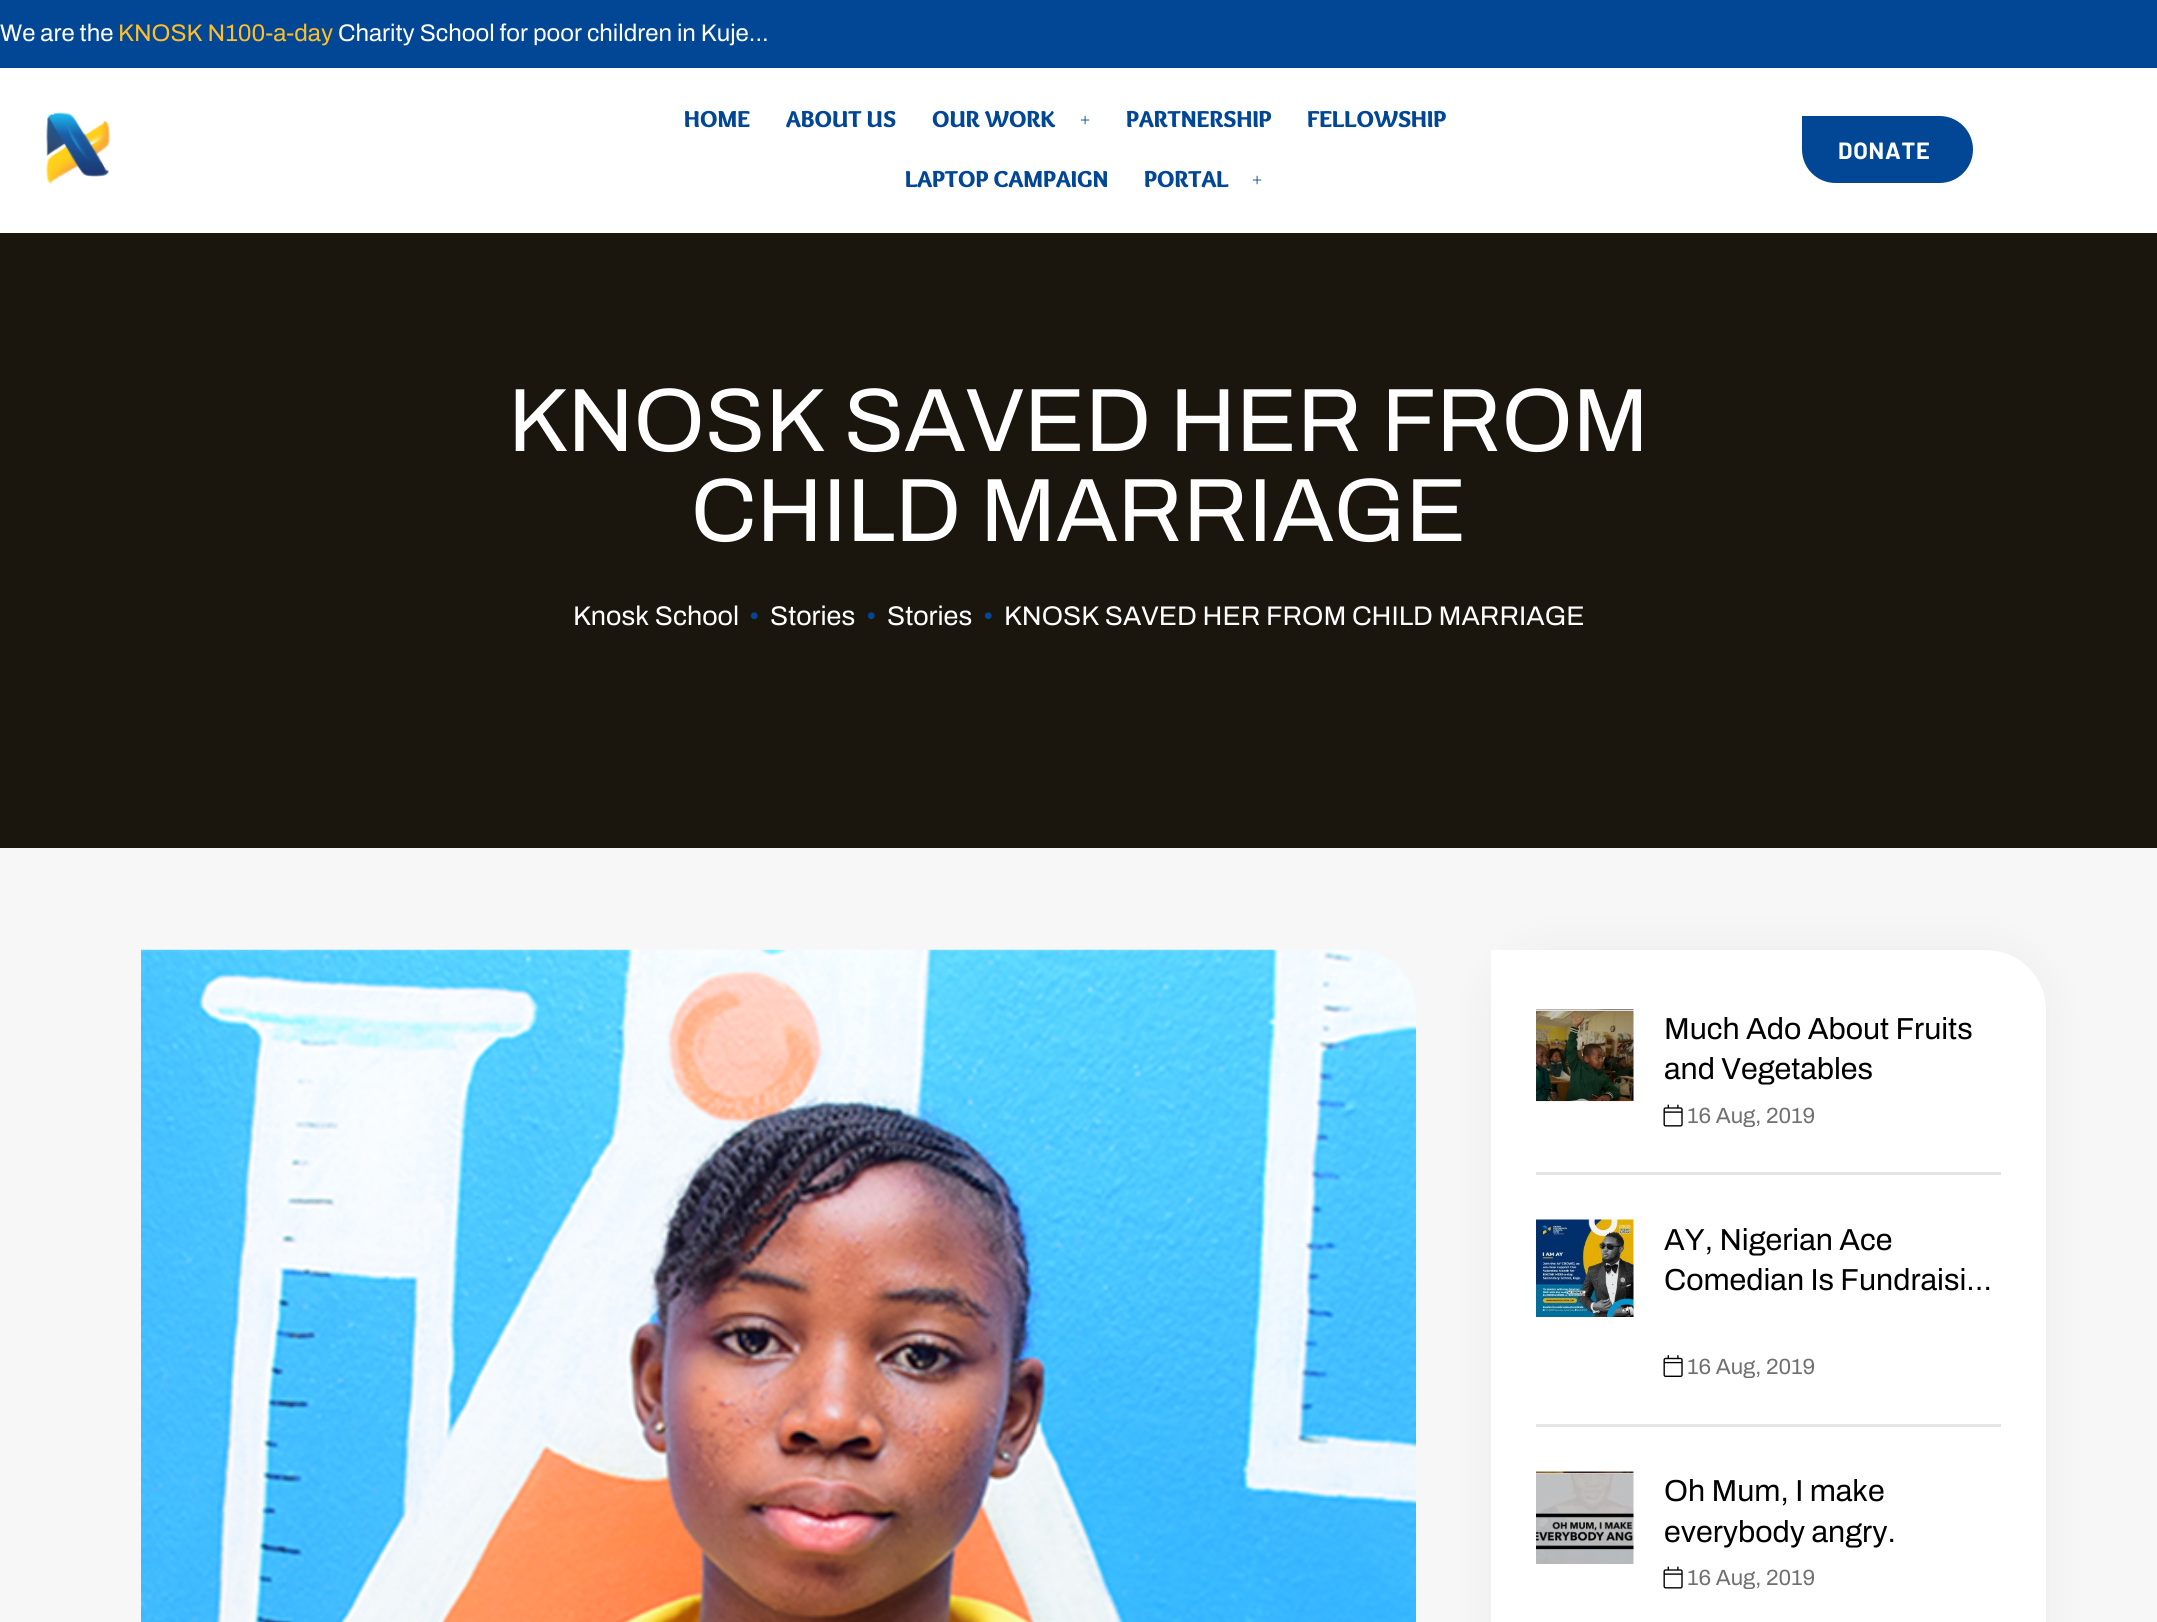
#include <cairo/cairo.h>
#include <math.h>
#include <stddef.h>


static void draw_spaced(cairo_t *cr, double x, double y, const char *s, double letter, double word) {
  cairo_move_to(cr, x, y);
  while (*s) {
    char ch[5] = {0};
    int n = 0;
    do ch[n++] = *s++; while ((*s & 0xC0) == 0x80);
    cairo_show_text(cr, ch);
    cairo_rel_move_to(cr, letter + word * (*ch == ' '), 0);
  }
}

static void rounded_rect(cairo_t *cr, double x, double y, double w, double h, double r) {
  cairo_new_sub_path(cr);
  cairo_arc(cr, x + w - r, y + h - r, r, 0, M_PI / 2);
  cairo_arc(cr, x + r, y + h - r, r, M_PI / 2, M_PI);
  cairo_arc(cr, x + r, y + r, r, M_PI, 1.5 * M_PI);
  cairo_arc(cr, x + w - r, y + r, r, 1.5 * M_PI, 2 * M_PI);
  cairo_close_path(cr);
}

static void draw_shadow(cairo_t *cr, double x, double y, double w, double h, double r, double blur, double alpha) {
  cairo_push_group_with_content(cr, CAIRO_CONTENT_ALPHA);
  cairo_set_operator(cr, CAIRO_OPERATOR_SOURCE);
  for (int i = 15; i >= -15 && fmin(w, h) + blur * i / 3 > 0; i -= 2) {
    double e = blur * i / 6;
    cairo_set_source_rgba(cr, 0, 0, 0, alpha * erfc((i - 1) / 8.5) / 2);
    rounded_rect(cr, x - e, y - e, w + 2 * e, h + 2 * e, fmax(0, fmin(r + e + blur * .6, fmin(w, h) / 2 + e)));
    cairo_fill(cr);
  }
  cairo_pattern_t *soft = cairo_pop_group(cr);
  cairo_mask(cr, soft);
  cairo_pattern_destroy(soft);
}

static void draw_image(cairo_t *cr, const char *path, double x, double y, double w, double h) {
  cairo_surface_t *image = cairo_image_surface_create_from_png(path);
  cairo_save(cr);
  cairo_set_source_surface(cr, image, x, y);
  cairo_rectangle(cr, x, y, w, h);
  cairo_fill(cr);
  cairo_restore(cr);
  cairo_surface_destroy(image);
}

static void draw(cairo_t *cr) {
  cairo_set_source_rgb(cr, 247 / 255.0, 247 / 255.0, 247 / 255.0);
  cairo_paint(cr);
  cairo_set_source_rgb(cr, 2 / 255.0, 71 / 255.0, 150 / 255.0);
  cairo_rectangle(cr, 0, 0, 2157, 68);
  cairo_fill(cr);
  cairo_set_source_rgb(cr, 1, 1, 1);
  cairo_rectangle(cr, 0, 68, 2157, 165);
  cairo_fill(cr);
  draw_image(cr, "images/1.png", 46, 112, 65, 72);
  cairo_set_source_rgb(cr, 2 / 255.0, 71 / 255.0, 150 / 255.0);
  cairo_new_path(cr);
  cairo_move_to(cr, 1803, 117);
  cairo_line_to(cr, 1939.5, 117);
  cairo_curve_to(cr, 1957.5, 117, 1972, 131.5, 1972, 149.5);
  cairo_curve_to(cr, 1972, 167.5, 1957.5, 182, 1939.5, 182);
  cairo_line_to(cr, 1835.5, 182);
  cairo_curve_to(cr, 1817.5, 182, 1803, 167.5, 1803, 149.5);
  cairo_close_path(cr);
  cairo_fill_preserve(cr);
  cairo_stroke(cr);
  cairo_set_source_rgb(cr, 26 / 255.0, 22 / 255.0, 14 / 255.0);
  cairo_rectangle(cr, 0, 233, 2157, 615);
  cairo_fill(cr);
  draw_image(cr, "images/2.png", 141, 949, 1275, 673);
  cairo_set_source_rgb(cr, 0, 0, 0);
  draw_shadow(cr, 1491, 950, 555, 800, 60, 22.5, 0.05);
  cairo_set_source_rgb(cr, 1, 1, 1);
  cairo_new_path(cr);
  cairo_move_to(cr, 1491, 950);
  cairo_line_to(cr, 1986, 950);
  cairo_curve_to(cr, 2019, 950, 2046, 977, 2046, 1010);
  cairo_line_to(cr, 2046, 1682);
  cairo_line_to(cr, 1551, 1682);
  cairo_curve_to(cr, 1518, 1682, 1491, 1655, 1491, 1622);
  cairo_close_path(cr);
  cairo_fill(cr);
  cairo_set_source_rgb(cr, 229 / 255.0, 229 / 255.0, 229 / 255.0);
  cairo_rectangle(cr, 1536, 1172, 465, 3);
  cairo_fill(cr);
  draw_image(cr, "images/3.png", 1536, 1009, 98, 93);
  draw_image(cr, "images/4.png", 1663, 1104, 20, 23);
  cairo_rectangle(cr, 1536, 1424, 465, 3);
  cairo_fill(cr);
  draw_image(cr, "images/5.png", 1536, 1219, 98, 98);
  draw_image(cr, "images/6.png", 1663, 1355, 20, 22);
  draw_image(cr, "images/7.png", 1536, 1471, 98, 93);
  draw_image(cr, "images/4.png", 1663, 1566, 20, 23);
  cairo_select_font_face(cr, "Archivo SemiBold", CAIRO_FONT_SLANT_NORMAL, CAIRO_FONT_WEIGHT_NORMAL);
  cairo_set_font_size(cr, 24);
  cairo_set_source_rgb(cr, 1, 1, 1);
  cairo_move_to(cr, 0, 41);
  cairo_show_text(cr, "We are the");
  cairo_set_source_rgb(cr, 253 / 255.0, 190 / 255.0, 41 / 255.0);
  cairo_move_to(cr, 118, 41);
  cairo_show_text(cr, "KNOSK N100-a-day");
  cairo_set_source_rgb(cr, 1, 1, 1);
  cairo_move_to(cr, 338, 41);
  cairo_show_text(cr, "Charity School for poor children in Kuje...");
  cairo_select_font_face(cr, "Overlock Black", CAIRO_FONT_SLANT_NORMAL, CAIRO_FONT_WEIGHT_NORMAL);
  cairo_set_source_rgb(cr, 2 / 255.0, 71 / 255.0, 150 / 255.0);
  cairo_move_to(cr, 684, 127);
  cairo_show_text(cr, "HOME");
  cairo_move_to(cr, 786, 127);
  cairo_show_text(cr, "ABOUT US");
  cairo_move_to(cr, 932, 127);
  cairo_show_text(cr, "OUR WORK");
  cairo_select_font_face(cr, "Liberation Serif", CAIRO_FONT_SLANT_NORMAL, CAIRO_FONT_WEIGHT_NORMAL);
  cairo_set_font_size(cr, 18);
  cairo_move_to(cr, 1080, 126);
  cairo_show_text(cr, "+");
  cairo_select_font_face(cr, "Overlock Black", CAIRO_FONT_SLANT_NORMAL, CAIRO_FONT_WEIGHT_NORMAL);
  cairo_set_font_size(cr, 24);
  cairo_move_to(cr, 1126, 127);
  cairo_show_text(cr, "PARTNERSHIP");
  cairo_move_to(cr, 1307, 127);
  cairo_show_text(cr, "FELLOWSHIP");
  cairo_move_to(cr, 905, 187);
  cairo_show_text(cr, "LAPTOP CAMPAIGN");
  cairo_move_to(cr, 1144, 187);
  cairo_show_text(cr, "PORTAL");
  cairo_select_font_face(cr, "Liberation Serif", CAIRO_FONT_SLANT_NORMAL, CAIRO_FONT_WEIGHT_NORMAL);
  cairo_set_font_size(cr, 18);
  cairo_move_to(cr, 1252, 186);
  cairo_show_text(cr, "+");
  cairo_select_font_face(cr, "Barlow", CAIRO_FONT_SLANT_NORMAL, CAIRO_FONT_WEIGHT_BOLD);
  cairo_set_font_size(cr, 23.5);
  cairo_set_source_rgb(cr, 1, 1, 1);
  draw_spaced(cr, 1838, 159, "DONATE", 0.75, 0);
  cairo_select_font_face(cr, "Archivo SemiBold", CAIRO_FONT_SLANT_NORMAL, CAIRO_FONT_WEIGHT_NORMAL);
  cairo_set_font_size(cr, 90);
  cairo_move_to(cr, 508, 451);
  cairo_show_text(cr, "KNOSK SAVED HER FROM");
  cairo_move_to(cr, 691, 541);
  cairo_show_text(cr, "CHILD MARRIAGE");
  cairo_set_font_size(cr, 27);
  cairo_move_to(cr, 573, 625);
  cairo_show_text(cr, "Knosk School");
  cairo_set_source_rgb(cr, 2 / 255.0, 71 / 255.0, 150 / 255.0);
  cairo_move_to(cr, 749, 625);
  cairo_show_text(cr, "•");
  cairo_set_source_rgb(cr, 1, 1, 1);
  cairo_move_to(cr, 770, 625);
  cairo_show_text(cr, "Stories");
  cairo_set_source_rgb(cr, 2 / 255.0, 71 / 255.0, 150 / 255.0);
  cairo_move_to(cr, 866, 625);
  cairo_show_text(cr, "•");
  cairo_set_source_rgb(cr, 1, 1, 1);
  cairo_move_to(cr, 887, 625);
  cairo_show_text(cr, "Stories");
  cairo_set_source_rgb(cr, 2 / 255.0, 71 / 255.0, 150 / 255.0);
  cairo_move_to(cr, 983, 625);
  cairo_show_text(cr, "•");
  cairo_set_source_rgb(cr, 1, 1, 1);
  cairo_move_to(cr, 1004, 625);
  cairo_show_text(cr, "KNOSK SAVED HER FROM CHILD MARRIAGE");
  cairo_set_font_size(cr, 30.4);
  cairo_set_source_rgb(cr, 0, 0, 0);
  cairo_move_to(cr, 1664, 1039);
  cairo_show_text(cr, "Much Ado About Fruits");
  cairo_move_to(cr, 1664, 1079);
  cairo_show_text(cr, "and Vegetables");
  cairo_set_font_size(cr, 22);
  cairo_set_source_rgb(cr, 112 / 255.0, 112 / 255.0, 112 / 255.0);
  cairo_move_to(cr, 1687, 1123);
  cairo_show_text(cr, "16 Aug, 2019");
  cairo_set_font_size(cr, 30.4);
  cairo_set_source_rgb(cr, 0, 0, 0);
  cairo_move_to(cr, 1664, 1250);
  cairo_show_text(cr, "AY, Nigerian Ace");
  cairo_move_to(cr, 1664, 1290);
  cairo_show_text(cr, "Comedian Is Fundraisi…");
  cairo_set_font_size(cr, 22);
  cairo_set_source_rgb(cr, 112 / 255.0, 112 / 255.0, 112 / 255.0);
  cairo_move_to(cr, 1687, 1374);
  cairo_show_text(cr, "16 Aug, 2019");
  cairo_set_font_size(cr, 30.4);
  cairo_set_source_rgb(cr, 0, 0, 0);
  cairo_move_to(cr, 1664, 1501);
  cairo_show_text(cr, "Oh Mum, I make");
  cairo_move_to(cr, 1664, 1542);
  cairo_show_text(cr, "everybody angry.");
  cairo_set_font_size(cr, 22);
  cairo_set_source_rgb(cr, 112 / 255.0, 112 / 255.0, 112 / 255.0);
  cairo_move_to(cr, 1687, 1585);
  cairo_show_text(cr, "16 Aug, 2019");
}

int main(void) {
  cairo_surface_t *surface = cairo_image_surface_create(CAIRO_FORMAT_RGB24, 2157, 1622);
  cairo_t *cr = cairo_create(surface);
  cairo_font_options_t *options = cairo_font_options_create();
  cairo_font_options_set_hint_metrics(options, CAIRO_HINT_METRICS_OFF);
  cairo_font_options_set_hint_style(options, CAIRO_HINT_STYLE_NONE);
  cairo_set_font_options(cr, options);
  cairo_set_miter_limit(cr, 4);
  draw(cr);
  cairo_surface_write_to_png(surface, "out.png");
  cairo_font_options_destroy(options);
  cairo_destroy(cr);
  cairo_surface_destroy(surface);
  return 0;
}
